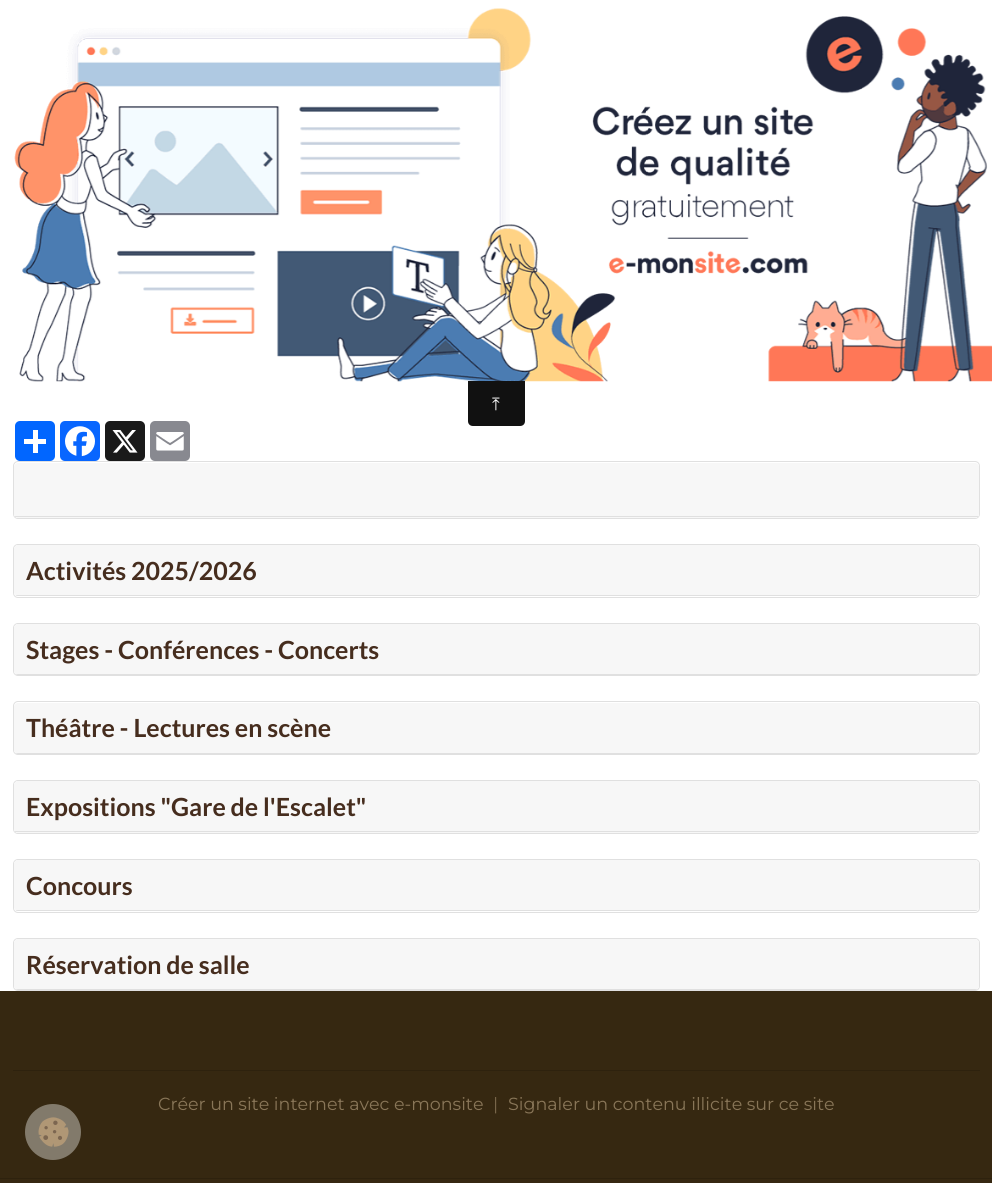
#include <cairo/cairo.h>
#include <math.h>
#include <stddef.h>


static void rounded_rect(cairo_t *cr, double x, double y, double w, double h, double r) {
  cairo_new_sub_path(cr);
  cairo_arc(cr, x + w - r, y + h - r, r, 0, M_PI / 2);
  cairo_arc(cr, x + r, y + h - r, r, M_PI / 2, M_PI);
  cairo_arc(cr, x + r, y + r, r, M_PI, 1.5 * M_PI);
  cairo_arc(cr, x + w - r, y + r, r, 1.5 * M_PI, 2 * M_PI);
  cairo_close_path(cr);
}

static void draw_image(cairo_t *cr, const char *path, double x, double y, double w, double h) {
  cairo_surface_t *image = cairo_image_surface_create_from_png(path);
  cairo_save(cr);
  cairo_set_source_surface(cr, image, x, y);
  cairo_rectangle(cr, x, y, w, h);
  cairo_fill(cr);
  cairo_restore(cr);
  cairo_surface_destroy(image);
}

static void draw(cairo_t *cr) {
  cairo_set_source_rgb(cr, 1, 1, 1);
  cairo_paint(cr);
  draw_image(cr, "images/1.png", 14, 8, 978, 374);
  cairo_set_source_rgb(cr, 17 / 255.0, 17 / 255.0, 17 / 255.0);
  cairo_new_path(cr);
  cairo_move_to(cr, 468, 381);
  cairo_line_to(cr, 525, 381);
  cairo_line_to(cr, 525, 421);
  cairo_curve_to(cr, 525, 424, 523, 426, 520, 426);
  cairo_line_to(cr, 473, 426);
  cairo_curve_to(cr, 470, 426, 468, 424, 468, 421);
  cairo_close_path(cr);
  cairo_fill(cr);
  cairo_set_source_rgb(cr, 1 / 255.0, 102 / 255.0, 1);
  rounded_rect(cr, 15, 421, 40, 40, 5);
  cairo_fill(cr);
  cairo_set_source_rgb(cr, 1, 1, 1);
  cairo_rectangle(cr, 33, 430, 5, 23);
  cairo_fill(cr);
  cairo_rectangle(cr, 24, 439, 22, 5);
  cairo_fill(cr);
  cairo_set_source_rgb(cr, 8 / 255.0, 102 / 255.0, 1);
  rounded_rect(cr, 60, 421, 40, 40, 5);
  cairo_fill(cr);
  draw_image(cr, "images/2.png", 65, 426, 30, 31);
  cairo_set_source_rgb(cr, 26 / 255.0, 26 / 255.0, 26 / 255.0);
  rounded_rect(cr, 105, 421, 40, 40, 5);
  cairo_fill(cr);
  draw_image(cr, "images/3.png", 112, 430, 26, 23);
  cairo_set_source_rgb(cr, 136 / 255.0, 137 / 255.0, 144 / 255.0);
  rounded_rect(cr, 150, 421, 40, 40, 5);
  cairo_fill(cr);
  draw_image(cr, "images/4.png", 156, 432, 28, 19);
  rounded_rect(cr, 13.5, 461.5, 966, 57, 4.5);
  cairo_set_source_rgb(cr, 224 / 255.0, 224 / 255.0, 224 / 255.0);
  cairo_set_line_width(cr, 1);
  cairo_stroke(cr);
  cairo_set_source_rgb(cr, 247 / 255.0, 247 / 255.0, 247 / 255.0);
  rounded_rect(cr, 14, 463, 965, 55, 4);
  cairo_fill(cr);
  cairo_save(cr);
  rounded_rect(cr, 14, 463, 965, 55, 4);
  cairo_clip(cr);
  cairo_set_source_rgb(cr, 224 / 255.0, 224 / 255.0, 224 / 255.0);
  cairo_rectangle(cr, 14, 516, 965, 1);
  cairo_fill(cr);
  cairo_restore(cr);
  rounded_rect(cr, 13.5, 544.5, 966, 53, 4.5);
  cairo_set_source_rgb(cr, 224 / 255.0, 224 / 255.0, 224 / 255.0);
  cairo_stroke(cr);
  cairo_set_source_rgb(cr, 247 / 255.0, 247 / 255.0, 247 / 255.0);
  rounded_rect(cr, 14, 545, 965, 51, 4);
  cairo_fill(cr);
  cairo_save(cr);
  rounded_rect(cr, 14, 545, 965, 51, 4);
  cairo_clip(cr);
  cairo_set_source_rgb(cr, 224 / 255.0, 224 / 255.0, 224 / 255.0);
  cairo_rectangle(cr, 14, 595, 965, 1);
  cairo_fill(cr);
  cairo_restore(cr);
  rounded_rect(cr, 13.5, 623.5, 966, 52, 4.5);
  cairo_set_source_rgb(cr, 224 / 255.0, 224 / 255.0, 224 / 255.0);
  cairo_stroke(cr);
  cairo_set_source_rgb(cr, 247 / 255.0, 247 / 255.0, 247 / 255.0);
  rounded_rect(cr, 14, 624, 965, 51, 4);
  cairo_fill(cr);
  cairo_save(cr);
  rounded_rect(cr, 14, 624, 965, 51, 4);
  cairo_clip(cr);
  cairo_set_source_rgb(cr, 224 / 255.0, 224 / 255.0, 224 / 255.0);
  cairo_rectangle(cr, 14, 674, 965, 1);
  cairo_fill(cr);
  cairo_restore(cr);
  rounded_rect(cr, 13.5, 701.5, 966, 53, 4.5);
  cairo_set_source_rgb(cr, 224 / 255.0, 224 / 255.0, 224 / 255.0);
  cairo_stroke(cr);
  cairo_set_source_rgb(cr, 247 / 255.0, 247 / 255.0, 247 / 255.0);
  rounded_rect(cr, 14, 703, 965, 51, 4);
  cairo_fill(cr);
  cairo_save(cr);
  rounded_rect(cr, 14, 703, 965, 51, 4);
  cairo_clip(cr);
  cairo_set_source_rgb(cr, 224 / 255.0, 224 / 255.0, 224 / 255.0);
  cairo_rectangle(cr, 14, 753, 965, 1);
  cairo_fill(cr);
  cairo_restore(cr);
  rounded_rect(cr, 13.5, 780.5, 966, 53, 4.5);
  cairo_set_source_rgb(cr, 224 / 255.0, 224 / 255.0, 224 / 255.0);
  cairo_stroke(cr);
  cairo_set_source_rgb(cr, 247 / 255.0, 247 / 255.0, 247 / 255.0);
  rounded_rect(cr, 14, 781, 965, 52, 4);
  cairo_fill(cr);
  cairo_save(cr);
  rounded_rect(cr, 14, 781, 965, 52, 4);
  cairo_clip(cr);
  cairo_set_source_rgb(cr, 224 / 255.0, 224 / 255.0, 224 / 255.0);
  cairo_rectangle(cr, 14, 831, 965, 1);
  cairo_fill(cr);
  cairo_restore(cr);
  rounded_rect(cr, 13.5, 859.5, 966, 53, 4.5);
  cairo_set_source_rgb(cr, 224 / 255.0, 224 / 255.0, 224 / 255.0);
  cairo_stroke(cr);
  cairo_set_source_rgb(cr, 247 / 255.0, 247 / 255.0, 247 / 255.0);
  rounded_rect(cr, 14, 860, 965, 51, 4);
  cairo_fill(cr);
  cairo_save(cr);
  rounded_rect(cr, 14, 860, 965, 51, 4);
  cairo_clip(cr);
  cairo_set_source_rgb(cr, 224 / 255.0, 224 / 255.0, 224 / 255.0);
  cairo_rectangle(cr, 14, 910, 965, 1);
  cairo_fill(cr);
  cairo_restore(cr);
  rounded_rect(cr, 13.5, 938.5, 966, 52, 4.5);
  cairo_set_source_rgb(cr, 224 / 255.0, 224 / 255.0, 224 / 255.0);
  cairo_stroke(cr);
  cairo_set_source_rgb(cr, 247 / 255.0, 247 / 255.0, 247 / 255.0);
  rounded_rect(cr, 14, 939, 965, 51, 4);
  cairo_fill(cr);
  cairo_save(cr);
  rounded_rect(cr, 14, 939, 965, 51, 4);
  cairo_clip(cr);
  cairo_set_source_rgb(cr, 224 / 255.0, 224 / 255.0, 224 / 255.0);
  cairo_rectangle(cr, 14, 989, 965, 1);
  cairo_fill(cr);
  cairo_restore(cr);
  cairo_set_source_rgb(cr, 54 / 255.0, 40 / 255.0, 17 / 255.0);
  cairo_rectangle(cr, 0, 991, 992, 192);
  cairo_fill(cr);
  cairo_set_source_rgb(cr, 130 / 255.0, 122 / 255.0, 107 / 255.0);
  cairo_arc(cr, 53, 1132, 28, 0, 2 * M_PI);
  cairo_fill(cr);
  draw_image(cr, "images/5.png", 38, 1117, 31, 30);
  cairo_set_source_rgb(cr, 46 / 255.0, 34 / 255.0, 14 / 255.0);
  cairo_rectangle(cr, 13, 1070, 967, 1);
  cairo_fill(cr);
  cairo_rectangle(cr, 0, 1178, 992, 1);
  cairo_fill(cr);
  cairo_select_font_face(cr, "FreeSerif", CAIRO_FONT_SLANT_NORMAL, CAIRO_FONT_WEIGHT_NORMAL);
  cairo_set_font_size(cr, 17.5);
  cairo_set_source_rgb(cr, 1, 1, 1);
  cairo_move_to(cr, 492, 410);
  cairo_show_text(cr, "⤒");
  cairo_select_font_face(cr, "Lato", CAIRO_FONT_SLANT_NORMAL, CAIRO_FONT_WEIGHT_BOLD);
  cairo_set_font_size(cr, 25);
  cairo_set_source_rgb(cr, 70 / 255.0, 45 / 255.0, 30 / 255.0);
  cairo_move_to(cr, 26, 580);
  cairo_show_text(cr, "Activités 2025/2026");
  cairo_move_to(cr, 26, 659);
  cairo_show_text(cr, "Stages - Conférences - Concerts");
  cairo_move_to(cr, 26, 737);
  cairo_show_text(cr, "Théâtre - Lectures en scène");
  cairo_move_to(cr, 26, 816);
  cairo_show_text(cr, "Expositions \"Gare de l'Escalet\"");
  cairo_move_to(cr, 26, 895);
  cairo_show_text(cr, "Concours");
  cairo_move_to(cr, 26, 974);
  cairo_show_text(cr, "Réservation de salle");
  cairo_select_font_face(cr, "Montserrat Thin", CAIRO_FONT_SLANT_NORMAL, CAIRO_FONT_WEIGHT_NORMAL);
  cairo_set_font_size(cr, 17.5);
  cairo_set_source_rgb(cr, 137 / 255.0, 118 / 255.0, 88 / 255.0);
  cairo_move_to(cr, 158, 1110);
  cairo_show_text(cr, "Créer un site internet avec e-monsite");
  cairo_set_source_rgb(cr, 120 / 255.0, 102 / 255.0, 74 / 255.0);
  cairo_move_to(cr, 493, 1110);
  cairo_show_text(cr, "|");
  cairo_set_source_rgb(cr, 137 / 255.0, 118 / 255.0, 88 / 255.0);
  cairo_move_to(cr, 508, 1110);
  cairo_show_text(cr, "Signaler un contenu illicite sur ce site");
}

int main(void) {
  cairo_surface_t *surface = cairo_image_surface_create(CAIRO_FORMAT_RGB24, 992, 1183);
  cairo_t *cr = cairo_create(surface);
  cairo_font_options_t *options = cairo_font_options_create();
  cairo_font_options_set_hint_metrics(options, CAIRO_HINT_METRICS_OFF);
  cairo_font_options_set_hint_style(options, CAIRO_HINT_STYLE_NONE);
  cairo_set_font_options(cr, options);
  cairo_set_miter_limit(cr, 4);
  draw(cr);
  cairo_surface_write_to_png(surface, "out.png");
  cairo_font_options_destroy(options);
  cairo_destroy(cr);
  cairo_surface_destroy(surface);
  return 0;
}
